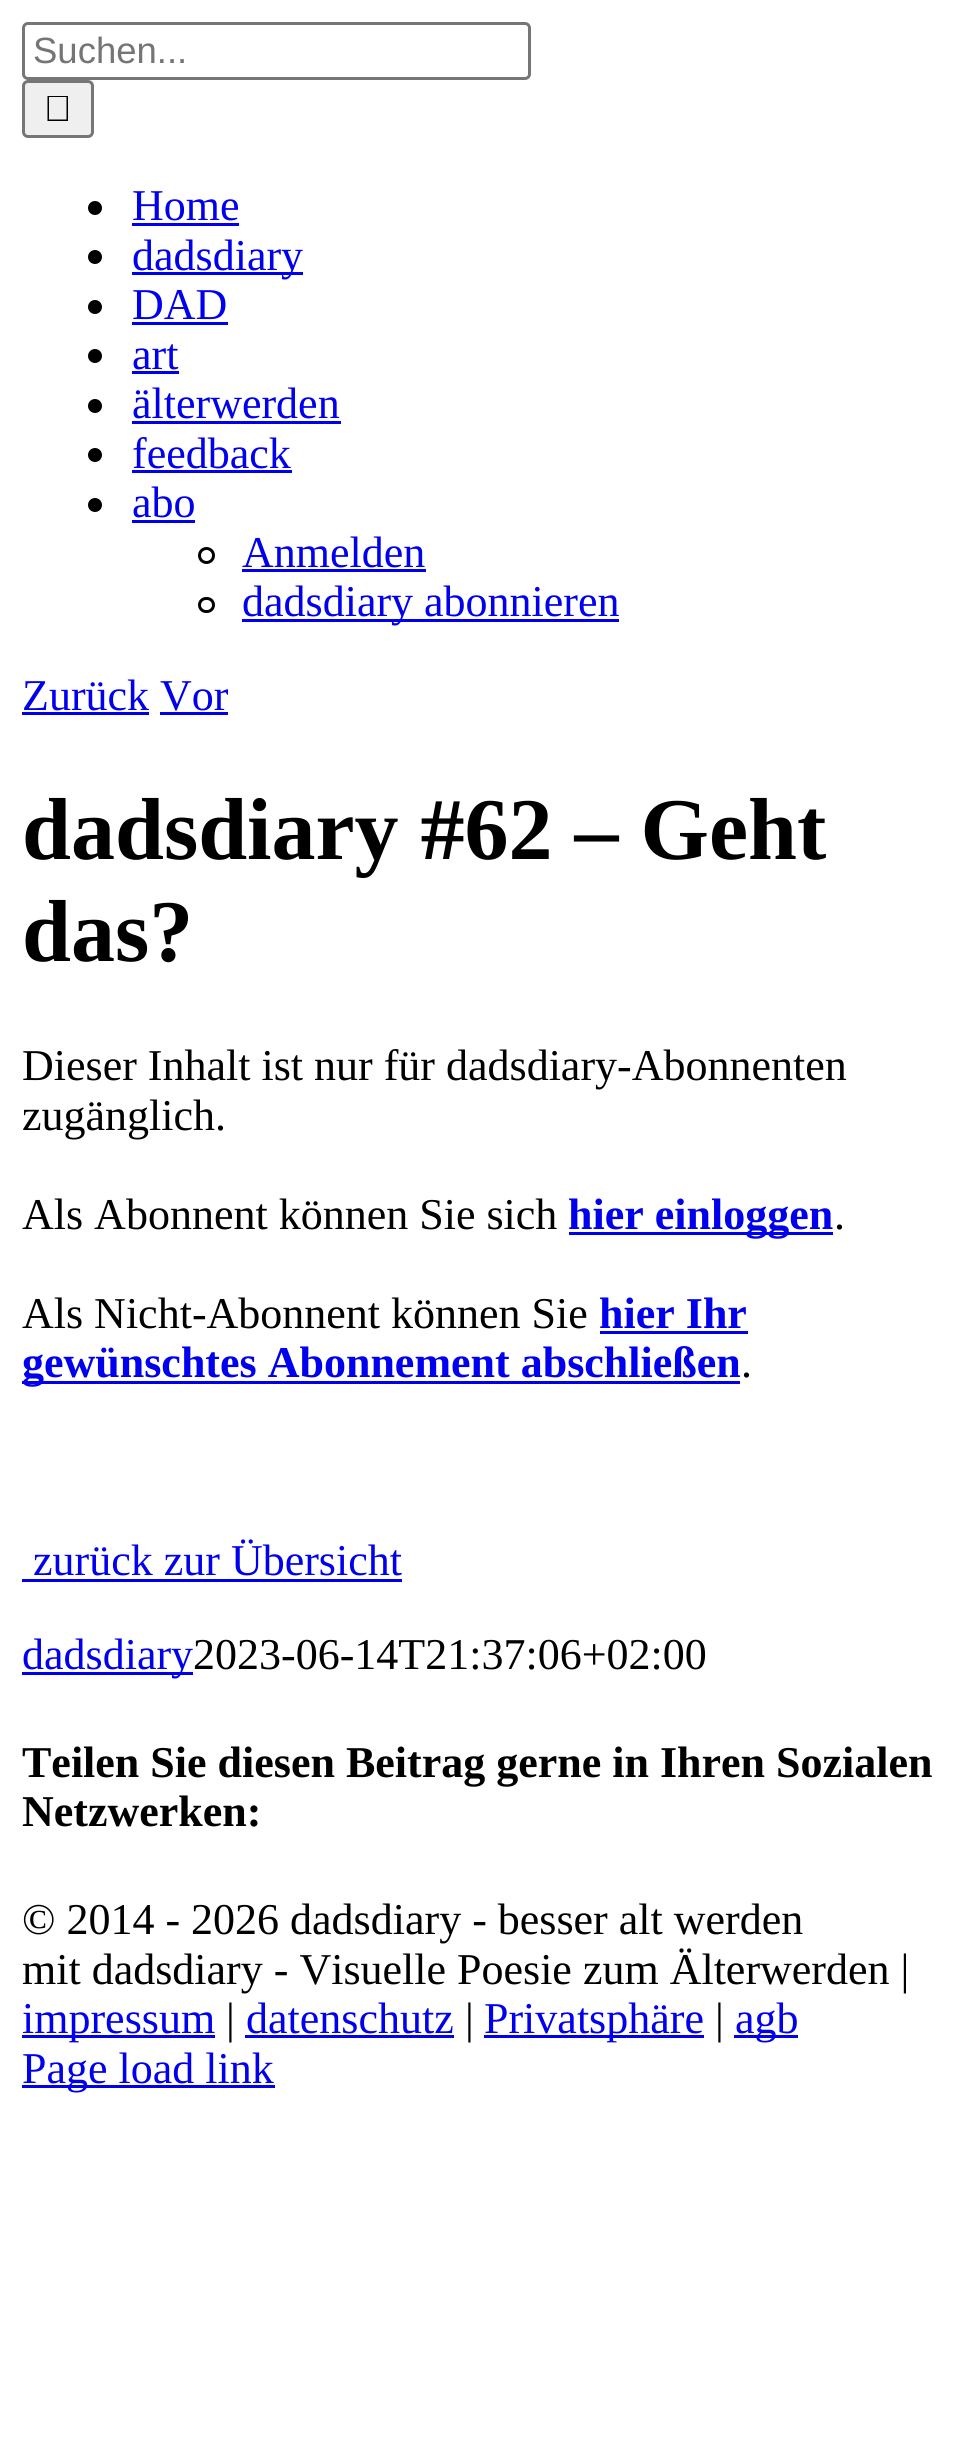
#include <cairo/cairo.h>
#include <math.h>
#include <stddef.h>


static void rounded_rect(cairo_t *cr, double x, double y, double w, double h, double r) {
  cairo_new_sub_path(cr);
  cairo_arc(cr, x + w - r, y + h - r, r, 0, M_PI / 2);
  cairo_arc(cr, x + r, y + h - r, r, M_PI / 2, M_PI);
  cairo_arc(cr, x + r, y + r, r, M_PI, 1.5 * M_PI);
  cairo_arc(cr, x + w - r, y + r, r, 1.5 * M_PI, 2 * M_PI);
  cairo_close_path(cr);
}

static void draw(cairo_t *cr) {
  cairo_set_source_rgb(cr, 1, 1, 1);
  cairo_paint(cr);
  rounded_rect(cr, 23.5, 23.5, 506, 55, 4.5);
  cairo_set_source_rgb(cr, 118 / 255.0, 118 / 255.0, 118 / 255.0);
  cairo_set_line_width(cr, 3);
  cairo_stroke(cr);
  cairo_set_source_rgb(cr, 239 / 255.0, 239 / 255.0, 239 / 255.0);
  rounded_rect(cr, 23.5, 81.5, 69, 55, 4.5);
  cairo_fill_preserve(cr);
  cairo_set_source_rgb(cr, 118 / 255.0, 118 / 255.0, 118 / 255.0);
  cairo_stroke(cr);
  cairo_set_source_rgb(cr, 0, 0, 0);
  cairo_new_path(cr);
  cairo_move_to(cr, 47.5, 96);
  cairo_line_to(cr, 68, 96);
  cairo_line_to(cr, 68, 121);
  cairo_line_to(cr, 47.5, 121);
  cairo_close_path(cr);
  cairo_move_to(cr, 49, 97);
  cairo_line_to(cr, 49, 119.5);
  cairo_line_to(cr, 66.5, 119.5);
  cairo_line_to(cr, 66.5, 97);
  cairo_close_path(cr);
  cairo_fill(cr);
  cairo_arc(cr, 95, 208, 7, 0, 2 * M_PI);
  cairo_fill(cr);
  cairo_set_source_rgb(cr, 0, 0, 238 / 255.0);
  cairo_rectangle(cr, 132, 223, 107, 3);
  cairo_fill(cr);
  cairo_set_source_rgb(cr, 0, 0, 0);
  cairo_arc(cr, 95, 257, 7, 0, 2 * M_PI);
  cairo_fill(cr);
  cairo_set_source_rgb(cr, 0, 0, 238 / 255.0);
  cairo_rectangle(cr, 132, 272, 171, 3);
  cairo_fill(cr);
  cairo_set_source_rgb(cr, 0, 0, 0);
  cairo_arc(cr, 95, 307, 7, 0, 2 * M_PI);
  cairo_fill(cr);
  cairo_set_source_rgb(cr, 0, 0, 238 / 255.0);
  cairo_rectangle(cr, 132, 322, 96, 3);
  cairo_fill(cr);
  cairo_set_source_rgb(cr, 0, 0, 0);
  cairo_arc(cr, 95, 356, 7, 0, 2 * M_PI);
  cairo_fill(cr);
  cairo_set_source_rgb(cr, 0, 0, 238 / 255.0);
  cairo_rectangle(cr, 132, 371, 47, 3);
  cairo_fill(cr);
  cairo_set_source_rgb(cr, 0, 0, 0);
  cairo_arc(cr, 95, 406, 7, 0, 2 * M_PI);
  cairo_fill(cr);
  cairo_set_source_rgb(cr, 0, 0, 238 / 255.0);
  cairo_rectangle(cr, 132, 421, 209, 3);
  cairo_fill(cr);
  cairo_set_source_rgb(cr, 0, 0, 0);
  cairo_arc(cr, 95, 455, 7, 0, 2 * M_PI);
  cairo_fill(cr);
  cairo_set_source_rgb(cr, 0, 0, 238 / 255.0);
  cairo_rectangle(cr, 132, 470, 160, 3);
  cairo_fill(cr);
  cairo_set_source_rgb(cr, 0, 0, 0);
  cairo_arc(cr, 95, 505, 7, 0, 2 * M_PI);
  cairo_fill(cr);
  cairo_set_source_rgb(cr, 0, 0, 238 / 255.0);
  cairo_rectangle(cr, 132, 520, 63, 3);
  cairo_fill(cr);
  cairo_arc(cr, 206.5, 555.5, 7, 0, 2 * M_PI);
  cairo_set_source_rgb(cr, 0, 0, 0);
  cairo_stroke(cr);
  cairo_set_source_rgb(cr, 0, 0, 238 / 255.0);
  cairo_rectangle(cr, 242, 569, 184, 3);
  cairo_fill(cr);
  rounded_rect(cr, 199.5, 598.5, 14, 13, 6.5);
  cairo_set_source_rgb(cr, 0, 0, 0);
  cairo_stroke(cr);
  cairo_set_source_rgb(cr, 0, 0, 238 / 255.0);
  cairo_rectangle(cr, 242, 619, 377, 3);
  cairo_fill(cr);
  cairo_rectangle(cr, 22, 712, 127, 3);
  cairo_fill(cr);
  cairo_rectangle(cr, 160, 712, 68, 3);
  cairo_fill(cr);
  cairo_rectangle(cr, 569, 1232, 264, 3);
  cairo_fill(cr);
  cairo_rectangle(cr, 600, 1331, 148, 3);
  cairo_fill(cr);
  cairo_rectangle(cr, 22, 1381, 718, 3);
  cairo_fill(cr);
  cairo_rectangle(cr, 22, 1579, 380, 3);
  cairo_fill(cr);
  cairo_rectangle(cr, 22, 1672, 171, 3);
  cairo_fill(cr);
  cairo_rectangle(cr, 22, 2035, 193, 3);
  cairo_fill(cr);
  cairo_rectangle(cr, 245, 2035, 209, 3);
  cairo_fill(cr);
  cairo_rectangle(cr, 484, 2035, 220, 3);
  cairo_fill(cr);
  cairo_rectangle(cr, 734, 2035, 64, 3);
  cairo_fill(cr);
  cairo_rectangle(cr, 22, 2085, 253, 3);
  cairo_fill(cr);
  cairo_select_font_face(cr, "Liberation Sans", CAIRO_FONT_SLANT_NORMAL, CAIRO_FONT_WEIGHT_NORMAL);
  cairo_set_font_size(cr, 36.5);
  cairo_set_source_rgb(cr, 117 / 255.0, 117 / 255.0, 117 / 255.0);
  cairo_move_to(cr, 33, 63);
  cairo_show_text(cr, "Suchen...");
  cairo_select_font_face(cr, "Liberation Serif", CAIRO_FONT_SLANT_NORMAL, CAIRO_FONT_WEIGHT_NORMAL);
  cairo_set_font_size(cr, 44);
  cairo_set_source_rgb(cr, 0, 0, 238 / 255.0);
  cairo_move_to(cr, 132, 220);
  cairo_show_text(cr, "Home");
  cairo_move_to(cr, 132, 270);
  cairo_show_text(cr, "dadsdiary");
  cairo_move_to(cr, 132, 319);
  cairo_show_text(cr, "DAD");
  cairo_move_to(cr, 132, 369);
  cairo_show_text(cr, "art");
  cairo_move_to(cr, 132, 418);
  cairo_show_text(cr, "älterwerden");
  cairo_move_to(cr, 132, 468);
  cairo_show_text(cr, "feedback");
  cairo_move_to(cr, 132, 517);
  cairo_show_text(cr, "abo");
  cairo_move_to(cr, 242, 567);
  cairo_show_text(cr, "Anmelden");
  cairo_move_to(cr, 242, 616);
  cairo_show_text(cr, "dadsdiary abonnieren");
  cairo_move_to(cr, 22, 710);
  cairo_show_text(cr, "Zurück Vor");
  cairo_select_font_face(cr, "Liberation Serif", CAIRO_FONT_SLANT_NORMAL, CAIRO_FONT_WEIGHT_BOLD);
  cairo_set_font_size(cr, 88);
  cairo_set_source_rgb(cr, 0, 0, 0);
  cairo_move_to(cr, 22, 859);
  cairo_show_text(cr, "dadsdiary #62 – Geht");
  cairo_move_to(cr, 22, 961);
  cairo_show_text(cr, "das?");
  cairo_select_font_face(cr, "Liberation Serif", CAIRO_FONT_SLANT_NORMAL, CAIRO_FONT_WEIGHT_NORMAL);
  cairo_set_font_size(cr, 44);
  cairo_move_to(cr, 22, 1080);
  cairo_show_text(cr, "Dieser Inhalt ist nur für dadsdiary-Abonnenten");
  cairo_move_to(cr, 22, 1130);
  cairo_show_text(cr, "zugänglich.");
  cairo_move_to(cr, 22, 1229);
  cairo_show_text(cr, "Als Abonnent können Sie sich");
  cairo_select_font_face(cr, "Liberation Serif", CAIRO_FONT_SLANT_NORMAL, CAIRO_FONT_WEIGHT_BOLD);
  cairo_set_source_rgb(cr, 0, 0, 238 / 255.0);
  cairo_move_to(cr, 568, 1229);
  cairo_show_text(cr, "hier einloggen");
  cairo_select_font_face(cr, "Liberation Serif", CAIRO_FONT_SLANT_NORMAL, CAIRO_FONT_WEIGHT_NORMAL);
  cairo_set_source_rgb(cr, 0, 0, 0);
  cairo_move_to(cr, 834, 1229);
  cairo_show_text(cr, ".");
  cairo_move_to(cr, 22, 1328);
  cairo_show_text(cr, "Als Nicht-Abonnent können Sie");
  cairo_select_font_face(cr, "Liberation Serif", CAIRO_FONT_SLANT_NORMAL, CAIRO_FONT_WEIGHT_BOLD);
  cairo_set_source_rgb(cr, 0, 0, 238 / 255.0);
  cairo_move_to(cr, 599, 1328);
  cairo_show_text(cr, "hier Ihr");
  cairo_move_to(cr, 22, 1377);
  cairo_show_text(cr, "gewünschtes Abonnement abschließen");
  cairo_select_font_face(cr, "Liberation Serif", CAIRO_FONT_SLANT_NORMAL, CAIRO_FONT_WEIGHT_NORMAL);
  cairo_set_source_rgb(cr, 0, 0, 0);
  cairo_move_to(cr, 741, 1377);
  cairo_show_text(cr, ".");
  cairo_set_source_rgb(cr, 0, 0, 238 / 255.0);
  cairo_move_to(cr, 33, 1575);
  cairo_show_text(cr, "zurück zur Übersicht");
  cairo_move_to(cr, 22, 1669);
  cairo_show_text(cr, "dadsdiary");
  cairo_set_source_rgb(cr, 0, 0, 0);
  cairo_move_to(cr, 193, 1669);
  cairo_show_text(cr, "2023-06-14T21:37:06+02:00");
  cairo_select_font_face(cr, "Liberation Serif", CAIRO_FONT_SLANT_NORMAL, CAIRO_FONT_WEIGHT_BOLD);
  cairo_move_to(cr, 22, 1777);
  cairo_show_text(cr, "Teilen Sie diesen Beitrag gerne in Ihren Sozialen");
  cairo_move_to(cr, 22, 1826);
  cairo_show_text(cr, "Netzwerken:");
  cairo_select_font_face(cr, "Liberation Serif", CAIRO_FONT_SLANT_NORMAL, CAIRO_FONT_WEIGHT_NORMAL);
  cairo_move_to(cr, 22, 1934);
  cairo_show_text(cr, "© 2014 - 2026 dadsdiary - besser alt werden");
  cairo_move_to(cr, 22, 1984);
  cairo_show_text(cr, "mit dadsdiary - Visuelle Poesie zum Älterwerden |");
  cairo_set_source_rgb(cr, 0, 0, 238 / 255.0);
  cairo_move_to(cr, 22, 2033);
  cairo_show_text(cr, "impressum");
  cairo_set_source_rgb(cr, 0, 0, 0);
  cairo_move_to(cr, 226, 2033);
  cairo_show_text(cr, "|");
  cairo_set_source_rgb(cr, 0, 0, 238 / 255.0);
  cairo_move_to(cr, 246, 2033);
  cairo_show_text(cr, "datenschutz");
  cairo_set_source_rgb(cr, 0, 0, 0);
  cairo_move_to(cr, 465, 2033);
  cairo_show_text(cr, "|");
  cairo_set_source_rgb(cr, 0, 0, 238 / 255.0);
  cairo_move_to(cr, 484, 2033);
  cairo_show_text(cr, "Privatsphäre");
  cairo_set_source_rgb(cr, 0, 0, 0);
  cairo_move_to(cr, 715, 2033);
  cairo_show_text(cr, "|");
  cairo_set_source_rgb(cr, 0, 0, 238 / 255.0);
  cairo_move_to(cr, 735, 2033);
  cairo_show_text(cr, "agb");
  cairo_move_to(cr, 22, 2083);
  cairo_show_text(cr, "Page load link");
}

int main(void) {
  cairo_surface_t *surface = cairo_image_surface_create(CAIRO_FORMAT_RGB24, 969, 2442);
  cairo_t *cr = cairo_create(surface);
  cairo_font_options_t *options = cairo_font_options_create();
  cairo_font_options_set_hint_metrics(options, CAIRO_HINT_METRICS_OFF);
  cairo_font_options_set_hint_style(options, CAIRO_HINT_STYLE_NONE);
  cairo_set_font_options(cr, options);
  cairo_set_miter_limit(cr, 4);
  draw(cr);
  cairo_surface_write_to_png(surface, "out.png");
  cairo_font_options_destroy(options);
  cairo_destroy(cr);
  cairo_surface_destroy(surface);
  return 0;
}
